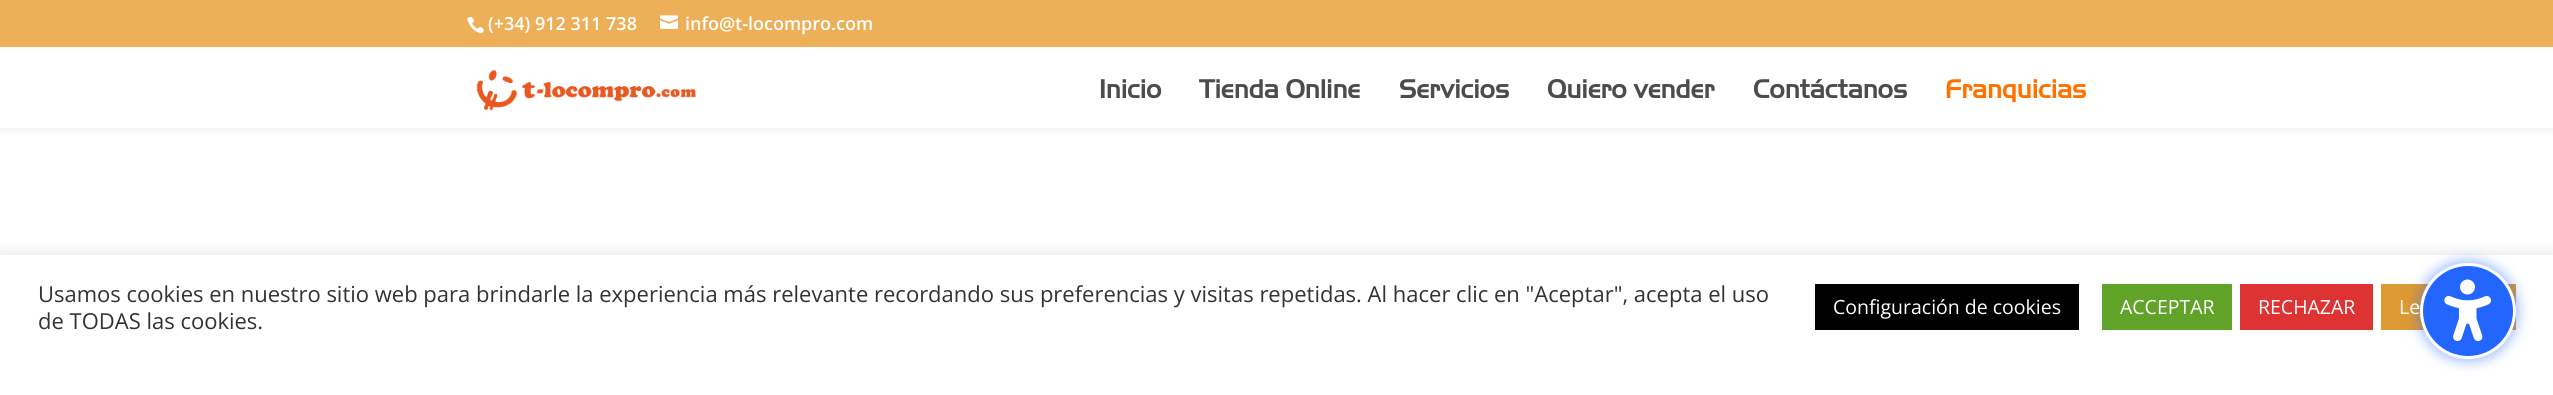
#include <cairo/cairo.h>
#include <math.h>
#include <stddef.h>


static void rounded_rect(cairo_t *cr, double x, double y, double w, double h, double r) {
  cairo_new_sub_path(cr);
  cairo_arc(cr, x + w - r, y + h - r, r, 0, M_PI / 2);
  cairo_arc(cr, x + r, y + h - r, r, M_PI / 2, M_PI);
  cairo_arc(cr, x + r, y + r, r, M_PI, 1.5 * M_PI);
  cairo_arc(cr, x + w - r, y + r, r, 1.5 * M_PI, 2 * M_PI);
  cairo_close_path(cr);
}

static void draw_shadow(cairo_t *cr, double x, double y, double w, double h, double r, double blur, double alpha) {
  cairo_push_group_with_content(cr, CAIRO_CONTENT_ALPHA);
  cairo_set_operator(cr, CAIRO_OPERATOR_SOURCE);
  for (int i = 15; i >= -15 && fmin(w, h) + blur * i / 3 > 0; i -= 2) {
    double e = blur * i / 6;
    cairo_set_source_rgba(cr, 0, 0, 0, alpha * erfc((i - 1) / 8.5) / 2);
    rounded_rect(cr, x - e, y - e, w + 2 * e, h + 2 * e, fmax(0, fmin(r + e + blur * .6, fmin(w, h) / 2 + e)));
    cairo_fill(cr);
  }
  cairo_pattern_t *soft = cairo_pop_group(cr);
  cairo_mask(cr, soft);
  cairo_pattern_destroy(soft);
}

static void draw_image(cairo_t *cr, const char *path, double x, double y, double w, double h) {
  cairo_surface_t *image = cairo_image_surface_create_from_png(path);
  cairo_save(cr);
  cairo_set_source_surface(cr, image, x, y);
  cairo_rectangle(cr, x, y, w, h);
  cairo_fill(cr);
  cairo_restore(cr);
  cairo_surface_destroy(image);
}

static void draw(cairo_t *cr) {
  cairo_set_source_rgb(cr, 1, 1, 1);
  cairo_paint(cr);
  cairo_set_source_rgb(cr, 0, 0, 0);
  draw_shadow(cr, 0, 47, 2553, 81, 0, 5, 0.1);
  cairo_set_source_rgb(cr, 237 / 255.0, 176 / 255.0, 89 / 255.0);
  cairo_rectangle(cr, 0, 0, 2553, 47);
  cairo_fill(cr);
  draw_image(cr, "images/1.png", 467, 16, 17, 18);
  draw_image(cr, "images/2.png", 660, 15, 18, 14);
  cairo_set_source_rgb(cr, 1, 1, 1);
  cairo_rectangle(cr, 0, 47, 2553, 81);
  cairo_fill(cr);
  draw_image(cr, "images/3.png", 476, 69, 220, 42);
  cairo_save(cr);
  cairo_rectangle(cr, 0, 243, 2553, 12);
  cairo_clip(cr);
  cairo_set_source_rgb(cr, 172 / 255.0, 171 / 255.0, 171 / 255.0);
  draw_shadow(cr, 0, 254, 2553, 141, 0, 7.5, 0.3);
  cairo_restore(cr);
  cairo_set_source_rgb(cr, 0, 0, 0);
  cairo_rectangle(cr, 1815, 284, 264, 46);
  cairo_fill(cr);
  cairo_set_source_rgb(cr, 97 / 255.0, 162 / 255.0, 41 / 255.0);
  cairo_rectangle(cr, 2102, 284, 130, 46);
  cairo_fill(cr);
  cairo_set_source_rgb(cr, 221 / 255.0, 51 / 255.0, 51 / 255.0);
  cairo_rectangle(cr, 2240, 284, 133, 46);
  cairo_fill(cr);
  cairo_set_source_rgb(cr, 221 / 255.0, 153 / 255.0, 51 / 255.0);
  cairo_rectangle(cr, 2381, 284, 135, 46);
  cairo_fill(cr);
  cairo_set_source_rgb(cr, 34 / 255.0, 102 / 255.0, 1);
  draw_shadow(cr, 2417, 260, 102, 102, 51, 6, 0.4);
  cairo_set_source_rgb(cr, 34 / 255.0, 102 / 255.0, 1);
  cairo_arc(cr, 2468, 311, 46.5, 0, 2 * M_PI);
  cairo_fill_preserve(cr);
  cairo_set_source_rgb(cr, 1, 1, 1);
  cairo_set_line_width(cr, 3);
  cairo_stroke(cr);
  draw_image(cr, "images/4.png", 2444, 279, 47, 63);
  cairo_select_font_face(cr, "Open Sans SemiBold", CAIRO_FONT_SLANT_NORMAL, CAIRO_FONT_WEIGHT_NORMAL);
  cairo_set_font_size(cr, 18);
  cairo_move_to(cr, 488, 30);
  cairo_show_text(cr, "(+34) 912 311 738");
  cairo_move_to(cr, 685, 30);
  cairo_show_text(cr, "info@t-locompro.com");
  cairo_select_font_face(cr, "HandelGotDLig", CAIRO_FONT_SLANT_NORMAL, CAIRO_FONT_WEIGHT_BOLD);
  cairo_set_font_size(cr, 27);
  cairo_set_source_rgb(cr, 76 / 255.0, 76 / 255.0, 76 / 255.0);
  cairo_move_to(cr, 1099, 98);
  cairo_show_text(cr, "Inicio");
  cairo_move_to(cr, 1199, 98);
  cairo_show_text(cr, "Tienda Online");
  cairo_move_to(cr, 1399, 98);
  cairo_show_text(cr, "Servicios");
  cairo_move_to(cr, 1547, 98);
  cairo_show_text(cr, "Quiero vender");
  cairo_move_to(cr, 1753, 98);
  cairo_show_text(cr, "Contáctanos");
  cairo_set_source_rgb(cr, 1, 114 / 255.0, 0);
  cairo_move_to(cr, 1945, 98);
  cairo_show_text(cr, "Franquicias");
  cairo_select_font_face(cr, "Open Sans", CAIRO_FONT_SLANT_NORMAL, CAIRO_FONT_WEIGHT_NORMAL);
  cairo_set_font_size(cr, 22);
  cairo_set_source_rgb(cr, 51 / 255.0, 51 / 255.0, 51 / 255.0);
  cairo_move_to(cr, 38, 302);
  cairo_show_text(cr, "Usamos cookies en nuestro sitio web para brindarle la experiencia más relevante recordando sus preferencias y visitas repetidas. Al hacer clic en \"Aceptar\", acepta el uso");
  cairo_move_to(cr, 38, 329);
  cairo_show_text(cr, "de TODAS las cookies.");
  cairo_set_font_size(cr, 19.5);
  cairo_set_source_rgb(cr, 1, 1, 1);
  cairo_move_to(cr, 1833, 314);
  cairo_show_text(cr, "Configuración de cookies");
  cairo_move_to(cr, 2120, 314);
  cairo_show_text(cr, "ACCEPTAR");
  cairo_move_to(cr, 2258, 314);
  cairo_show_text(cr, "RECHAZAR");
  cairo_move_to(cr, 2399, 314);
  cairo_show_text(cr, "Le");
}

int main(void) {
  cairo_surface_t *surface = cairo_image_surface_create(CAIRO_FORMAT_RGB24, 2553, 395);
  cairo_t *cr = cairo_create(surface);
  cairo_font_options_t *options = cairo_font_options_create();
  cairo_font_options_set_hint_metrics(options, CAIRO_HINT_METRICS_OFF);
  cairo_font_options_set_hint_style(options, CAIRO_HINT_STYLE_NONE);
  cairo_set_font_options(cr, options);
  cairo_set_miter_limit(cr, 4);
  draw(cr);
  cairo_surface_write_to_png(surface, "out.png");
  cairo_font_options_destroy(options);
  cairo_destroy(cr);
  cairo_surface_destroy(surface);
  return 0;
}
